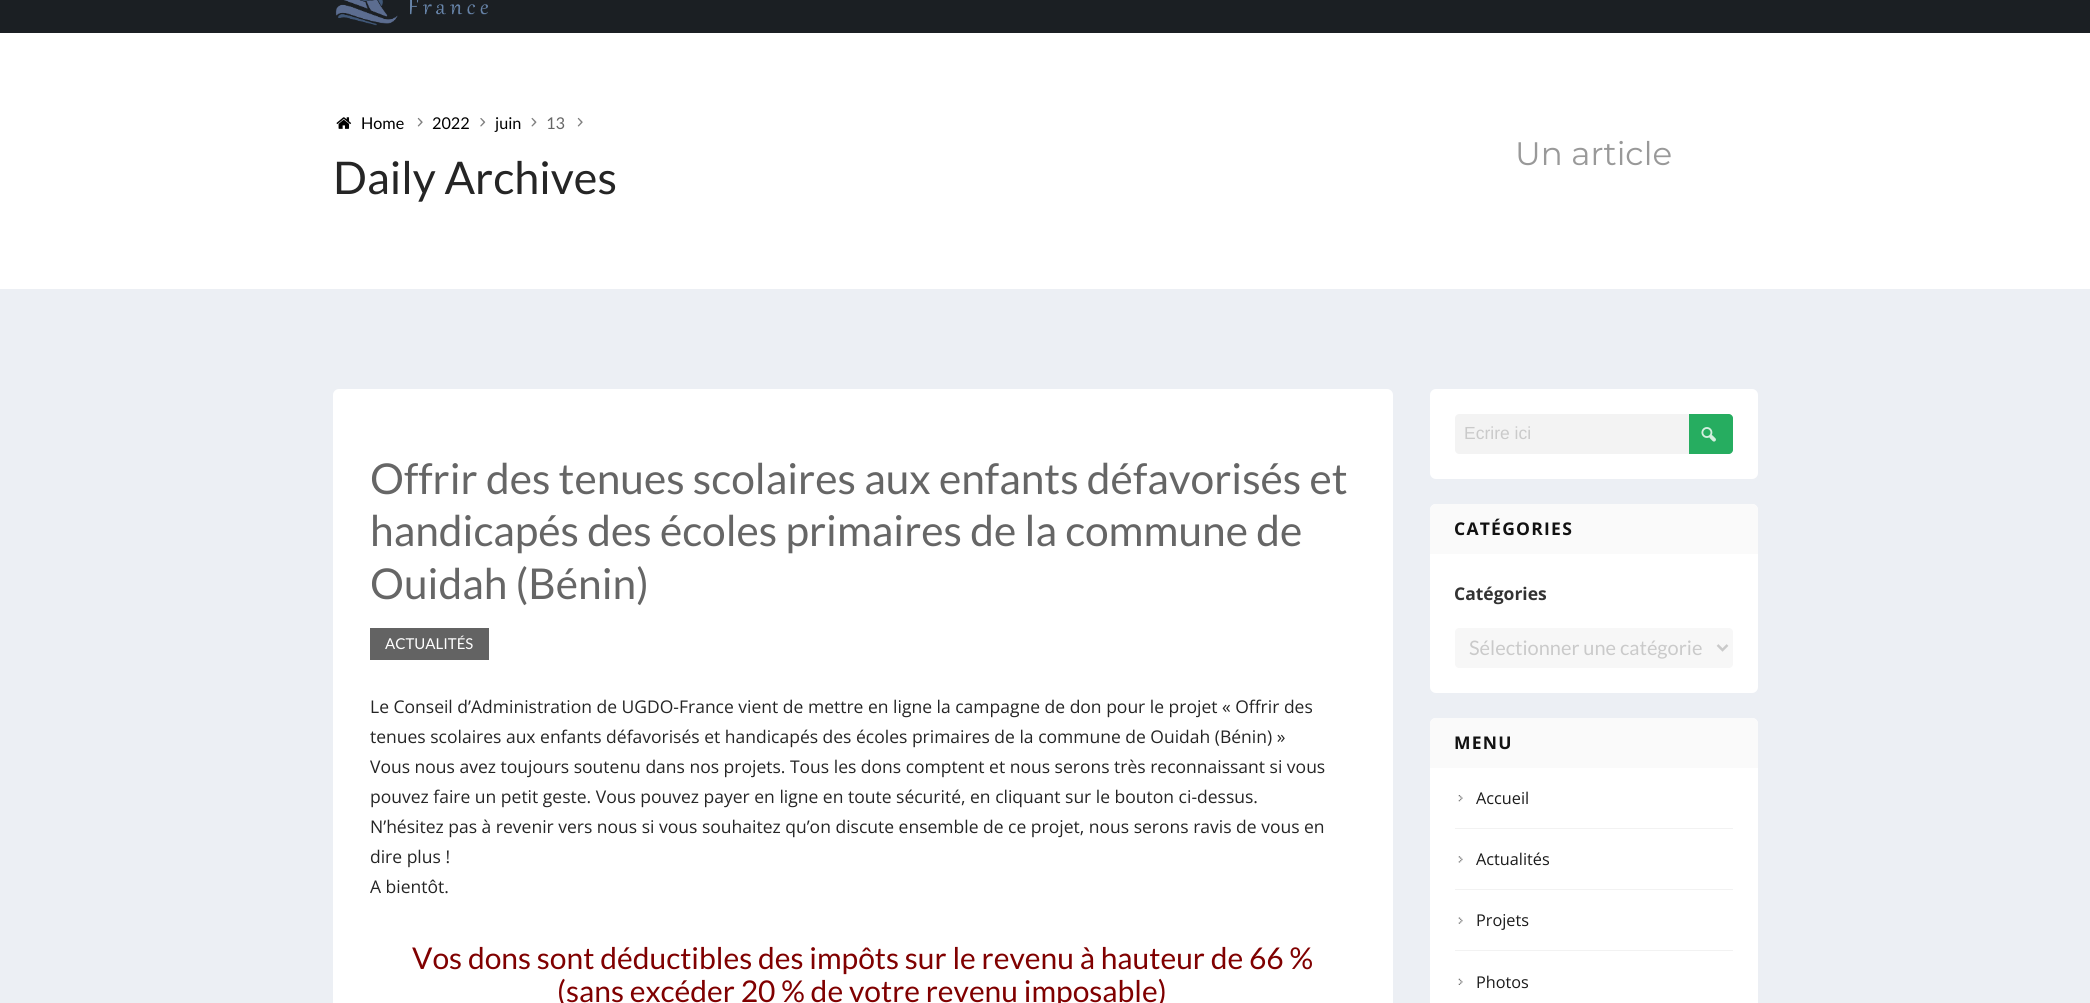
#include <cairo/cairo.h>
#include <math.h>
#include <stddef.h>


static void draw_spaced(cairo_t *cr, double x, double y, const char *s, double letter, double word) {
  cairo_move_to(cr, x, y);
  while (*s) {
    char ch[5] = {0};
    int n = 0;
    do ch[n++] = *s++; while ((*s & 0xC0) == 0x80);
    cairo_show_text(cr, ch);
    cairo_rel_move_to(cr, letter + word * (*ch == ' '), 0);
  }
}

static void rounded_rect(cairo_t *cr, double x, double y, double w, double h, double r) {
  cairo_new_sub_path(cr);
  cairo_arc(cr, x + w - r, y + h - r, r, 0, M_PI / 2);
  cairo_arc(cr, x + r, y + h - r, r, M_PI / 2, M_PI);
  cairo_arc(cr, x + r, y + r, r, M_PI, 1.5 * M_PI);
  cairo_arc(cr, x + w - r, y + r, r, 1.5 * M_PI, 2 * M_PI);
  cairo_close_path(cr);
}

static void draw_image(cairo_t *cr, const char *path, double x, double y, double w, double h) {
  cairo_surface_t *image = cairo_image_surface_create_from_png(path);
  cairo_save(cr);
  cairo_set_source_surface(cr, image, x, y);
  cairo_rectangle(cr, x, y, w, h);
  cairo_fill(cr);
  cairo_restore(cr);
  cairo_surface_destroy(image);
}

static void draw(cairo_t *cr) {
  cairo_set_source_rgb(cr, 27 / 255.0, 31 / 255.0, 35 / 255.0);
  cairo_paint(cr);
  draw_image(cr, "images/1.png", 335, 0, 153, 26);
  cairo_set_source_rgb(cr, 1, 1, 1);
  cairo_rectangle(cr, 0, 33, 2090, 256);
  cairo_fill(cr);
  draw_image(cr, "images/2.png", 336, 117, 16, 12);
  draw_image(cr, "images/3.png", 417, 117, 6, 10);
  draw_image(cr, "images/4.png", 480, 118, 6, 9);
  draw_image(cr, "images/5.png", 531, 117, 6, 10);
  draw_image(cr, "images/3.png", 577, 117, 6, 10);
  cairo_set_source_rgb(cr, 236 / 255.0, 239 / 255.0, 244 / 255.0);
  cairo_rectangle(cr, 0, 289, 2090, 714);
  cairo_fill(cr);
  cairo_set_source_rgb(cr, 1, 1, 1);
  rounded_rect(cr, 333, 389, 1060, 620, 6);
  cairo_fill(cr);
  cairo_set_source_rgb(cr, 99 / 255.0, 99 / 255.0, 99 / 255.0);
  cairo_rectangle(cr, 370, 628, 119, 32);
  cairo_fill(cr);
  cairo_set_source_rgb(cr, 1, 1, 1);
  rounded_rect(cr, 1430, 389, 328, 90, 6);
  cairo_fill(cr);
  cairo_set_source_rgb(cr, 243 / 255.0, 243 / 255.0, 243 / 255.0);
  cairo_new_path(cr);
  cairo_move_to(cr, 1459, 414);
  cairo_line_to(cr, 1691, 414);
  cairo_line_to(cr, 1691, 454);
  cairo_line_to(cr, 1459, 454);
  cairo_curve_to(cr, 1457, 454, 1455, 452, 1455, 450);
  cairo_line_to(cr, 1455, 418);
  cairo_curve_to(cr, 1455, 416, 1457, 414, 1459, 414);
  cairo_close_path(cr);
  cairo_fill(cr);
  cairo_set_source_rgb(cr, 38 / 255.0, 173 / 255.0, 96 / 255.0);
  cairo_new_path(cr);
  cairo_move_to(cr, 1689, 414);
  cairo_line_to(cr, 1729, 414);
  cairo_curve_to(cr, 1731, 414, 1733, 416, 1733, 418);
  cairo_line_to(cr, 1733, 450);
  cairo_curve_to(cr, 1733, 452, 1731, 454, 1729, 454);
  cairo_line_to(cr, 1689, 454);
  cairo_close_path(cr);
  cairo_fill(cr);
  draw_image(cr, "images/6.png", 1701, 427, 15, 15);
  cairo_set_source_rgb(cr, 1, 1, 1);
  rounded_rect(cr, 1430, 504, 328, 189, 6);
  cairo_fill(cr);
  cairo_set_source_rgb(cr, 250 / 255.0, 250 / 255.0, 250 / 255.0);
  cairo_new_path(cr);
  cairo_move_to(cr, 1436, 504);
  cairo_line_to(cr, 1752, 504);
  cairo_curve_to(cr, 1755.5, 504, 1758, 506.5, 1758, 510);
  cairo_line_to(cr, 1758, 554);
  cairo_line_to(cr, 1430, 554);
  cairo_line_to(cr, 1430, 510);
  cairo_curve_to(cr, 1430, 506.5, 1432.5, 504, 1436, 504);
  cairo_close_path(cr);
  cairo_fill(cr);
  cairo_set_source_rgb(cr, 247 / 255.0, 247 / 255.0, 247 / 255.0);
  rounded_rect(cr, 1455, 628, 278, 40, 4);
  cairo_fill(cr);
  cairo_new_path(cr);
  cairo_move_to(cr, 1717.5, 645);
  cairo_line_to(cr, 1722.5, 650);
  cairo_line_to(cr, 1727.5, 645);
  cairo_set_source_rgb(cr, 202 / 255.0, 202 / 255.0, 202 / 255.0);
  cairo_set_line_width(cr, 2.5);
  cairo_stroke(cr);
  cairo_set_source_rgb(cr, 1, 1, 1);
  rounded_rect(cr, 1430, 718, 328, 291, 6);
  cairo_fill(cr);
  cairo_set_source_rgb(cr, 250 / 255.0, 250 / 255.0, 250 / 255.0);
  cairo_new_path(cr);
  cairo_move_to(cr, 1436, 718);
  cairo_line_to(cr, 1752, 718);
  cairo_curve_to(cr, 1755.5, 718, 1758, 720.5, 1758, 724);
  cairo_line_to(cr, 1758, 768);
  cairo_line_to(cr, 1430, 768);
  cairo_line_to(cr, 1430, 724);
  cairo_curve_to(cr, 1430, 720.5, 1432.5, 718, 1436, 718);
  cairo_close_path(cr);
  cairo_fill(cr);
  draw_image(cr, "images/7.png", 1458, 795, 5, 7);
  cairo_set_source_rgb(cr, 242 / 255.0, 242 / 255.0, 242 / 255.0);
  cairo_rectangle(cr, 1455, 828, 278, 1);
  cairo_fill(cr);
  draw_image(cr, "images/8.png", 1458, 856, 5, 7);
  cairo_rectangle(cr, 1455, 889, 278, 1);
  cairo_fill(cr);
  draw_image(cr, "images/9.png", 1458, 917, 5, 7);
  cairo_rectangle(cr, 1455, 950, 278, 1);
  cairo_fill(cr);
  draw_image(cr, "images/10.png", 1458, 978, 5, 7);
  cairo_select_font_face(cr, "Lato", CAIRO_FONT_SLANT_NORMAL, CAIRO_FONT_WEIGHT_NORMAL);
  cairo_set_font_size(cr, 16.25);
  cairo_set_source_rgb(cr, 0, 0, 0);
  cairo_move_to(cr, 361, 129);
  cairo_show_text(cr, "Home");
  cairo_move_to(cr, 432, 129);
  cairo_show_text(cr, "2022");
  cairo_move_to(cr, 495, 129);
  cairo_show_text(cr, "juin");
  cairo_set_source_rgb(cr, 102 / 255.0, 102 / 255.0, 102 / 255.0);
  cairo_move_to(cr, 546, 129);
  cairo_show_text(cr, "13");
  cairo_set_font_size(cr, 45);
  cairo_set_source_rgb(cr, 37 / 255.0, 37 / 255.0, 37 / 255.0);
  cairo_move_to(cr, 333, 194);
  cairo_show_text(cr, "Daily Archives");
  cairo_select_font_face(cr, "Montserrat", CAIRO_FONT_SLANT_NORMAL, CAIRO_FONT_WEIGHT_NORMAL);
  cairo_set_font_size(cr, 32.5);
  cairo_set_source_rgb(cr, 153 / 255.0, 153 / 255.0, 153 / 255.0);
  cairo_move_to(cr, 1515, 165);
  cairo_show_text(cr, "Un article");
  cairo_select_font_face(cr, "Lato", CAIRO_FONT_SLANT_NORMAL, CAIRO_FONT_WEIGHT_NORMAL);
  cairo_set_font_size(cr, 42.5);
  cairo_set_source_rgb(cr, 102 / 255.0, 102 / 255.0, 102 / 255.0);
  cairo_move_to(cr, 370, 494);
  cairo_show_text(cr, "Offrir des tenues scolaires aux enfants défavorisés et");
  cairo_move_to(cr, 370, 546);
  cairo_show_text(cr, "handicapés des écoles primaires de la commune de");
  cairo_move_to(cr, 370, 599);
  cairo_show_text(cr, "Ouidah (Bénin)");
  cairo_set_font_size(cr, 15);
  cairo_set_source_rgb(cr, 1, 1, 1);
  cairo_move_to(cr, 385, 649);
  cairo_show_text(cr, "ACTUALITÉS");
  cairo_select_font_face(cr, "Open Sans", CAIRO_FONT_SLANT_NORMAL, CAIRO_FONT_WEIGHT_NORMAL);
  cairo_set_font_size(cr, 17.5);
  cairo_set_source_rgb(cr, 37 / 255.0, 37 / 255.0, 37 / 255.0);
  cairo_move_to(cr, 370, 713);
  cairo_show_text(cr, "Le Conseil d’Administration de UGDO-France vient de mettre en ligne la campagne de don pour le projet « Offrir des");
  cairo_move_to(cr, 370, 743);
  cairo_show_text(cr, "tenues scolaires aux enfants défavorisés et handicapés des écoles primaires de la commune de Ouidah (Bénin) »");
  cairo_move_to(cr, 370, 773);
  cairo_show_text(cr, "Vous nous avez toujours soutenu dans nos projets. Tous les dons comptent et nous serons très reconnaissant si vous");
  cairo_move_to(cr, 370, 803);
  cairo_show_text(cr, "pouvez faire un petit geste. Vous pouvez payer en ligne en toute sécurité, en cliquant sur le bouton ci-dessus.");
  cairo_move_to(cr, 370, 833);
  cairo_show_text(cr, "N’hésitez pas à revenir vers nous si vous souhaitez qu’on discute ensemble de ce projet, nous serons ravis de vous en");
  cairo_move_to(cr, 370, 863);
  cairo_show_text(cr, "dire plus !");
  cairo_move_to(cr, 370, 893);
  cairo_show_text(cr, "A bientôt.");
  cairo_select_font_face(cr, "Lato", CAIRO_FONT_SLANT_NORMAL, CAIRO_FONT_WEIGHT_NORMAL);
  cairo_set_font_size(cr, 30);
  cairo_set_source_rgb(cr, 128 / 255.0, 0, 0);
  cairo_move_to(cr, 412, 969);
  cairo_show_text(cr, "Vos dons sont déductibles des impôts sur le revenu à hauteur de 66 %");
  cairo_move_to(cr, 557, 1002);
  cairo_show_text(cr, "(sans excéder 20 % de votre revenu imposable)");
  cairo_select_font_face(cr, "Liberation Sans", CAIRO_FONT_SLANT_NORMAL, CAIRO_FONT_WEIGHT_NORMAL);
  cairo_set_font_size(cr, 17.5);
  cairo_set_source_rgb(cr, 202 / 255.0, 202 / 255.0, 202 / 255.0);
  cairo_move_to(cr, 1464, 439);
  cairo_show_text(cr, "Ecrire ici");
  cairo_select_font_face(cr, "Open Sans", CAIRO_FONT_SLANT_NORMAL, CAIRO_FONT_WEIGHT_BOLD);
  cairo_set_source_rgb(cr, 18 / 255.0, 18 / 255.0, 18 / 255.0);
  draw_spaced(cr, 1454, 535, "CATÉGORIES", 1.25, 0);
  cairo_set_source_rgb(cr, 51 / 255.0, 51 / 255.0, 51 / 255.0);
  cairo_move_to(cr, 1454, 600);
  cairo_show_text(cr, "Catégories");
  cairo_select_font_face(cr, "Lato", CAIRO_FONT_SLANT_NORMAL, CAIRO_FONT_WEIGHT_NORMAL);
  cairo_set_font_size(cr, 20);
  cairo_set_source_rgb(cr, 202 / 255.0, 202 / 255.0, 202 / 255.0);
  cairo_move_to(cr, 1469, 655);
  cairo_show_text(cr, "Sélectionner une catégorie");
  cairo_select_font_face(cr, "Open Sans", CAIRO_FONT_SLANT_NORMAL, CAIRO_FONT_WEIGHT_BOLD);
  cairo_set_font_size(cr, 17.5);
  cairo_set_source_rgb(cr, 18 / 255.0, 18 / 255.0, 18 / 255.0);
  draw_spaced(cr, 1454, 749, "MENU", 1.25, 0);
  cairo_select_font_face(cr, "Open Sans", CAIRO_FONT_SLANT_NORMAL, CAIRO_FONT_WEIGHT_NORMAL);
  cairo_set_font_size(cr, 16.25);
  cairo_set_source_rgb(cr, 27 / 255.0, 27 / 255.0, 27 / 255.0);
  cairo_move_to(cr, 1476, 804);
  cairo_show_text(cr, "Accueil");
  cairo_move_to(cr, 1476, 865);
  cairo_show_text(cr, "Actualités");
  cairo_move_to(cr, 1476, 926);
  cairo_show_text(cr, "Projets");
  cairo_move_to(cr, 1476, 988);
  cairo_show_text(cr, "Photos");
}

int main(void) {
  cairo_surface_t *surface = cairo_image_surface_create(CAIRO_FORMAT_RGB24, 2090, 1003);
  cairo_t *cr = cairo_create(surface);
  cairo_font_options_t *options = cairo_font_options_create();
  cairo_font_options_set_hint_metrics(options, CAIRO_HINT_METRICS_OFF);
  cairo_font_options_set_hint_style(options, CAIRO_HINT_STYLE_NONE);
  cairo_set_font_options(cr, options);
  cairo_set_miter_limit(cr, 4);
  draw(cr);
  cairo_surface_write_to_png(surface, "out.png");
  cairo_font_options_destroy(options);
  cairo_destroy(cr);
  cairo_surface_destroy(surface);
  return 0;
}
